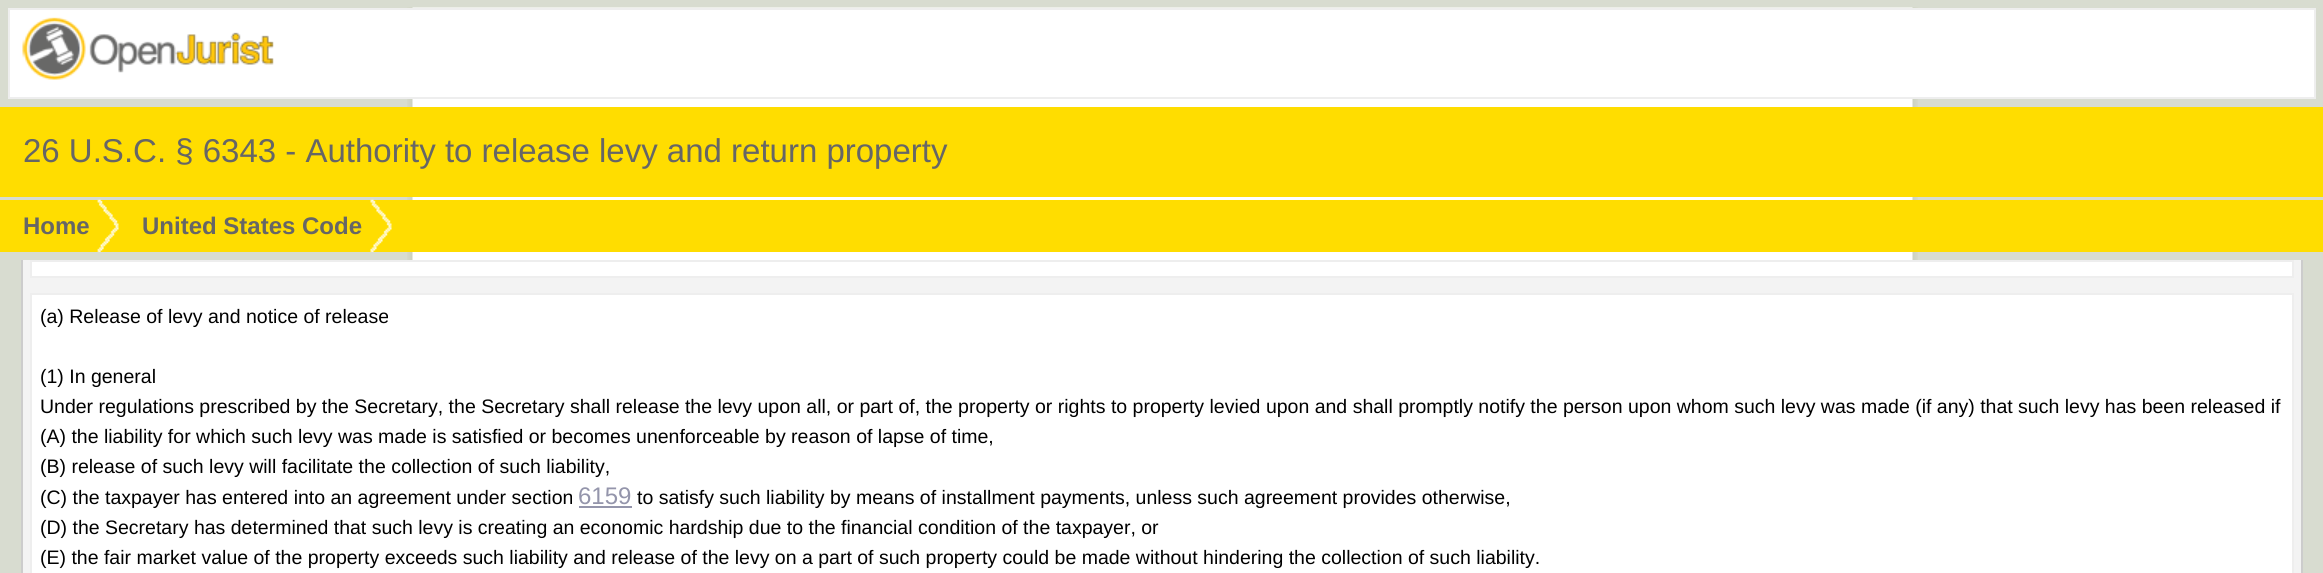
#include <cairo/cairo.h>
#include <math.h>
#include <stddef.h>


static void draw_image(cairo_t *cr, const char *path, double x, double y, double w, double h) {
  cairo_surface_t *image = cairo_image_surface_create_from_png(path);
  cairo_save(cr);
  cairo_set_source_surface(cr, image, x, y);
  cairo_rectangle(cr, x, y, w, h);
  cairo_fill(cr);
  cairo_restore(cr);
  cairo_surface_destroy(image);
}

static void draw(cairo_t *cr) {
  cairo_set_source_rgb(cr, 216 / 255.0, 220 / 255.0, 208 / 255.0);
  cairo_paint(cr);
  draw_image(cr, "images/1.png", 407, 7, 1511, 253);
  cairo_set_source_rgb(cr, 1, 1, 1);
  cairo_rectangle(cr, 9, 9, 2306, 89);
  cairo_fill_preserve(cr);
  cairo_set_source_rgb(cr, 238 / 255.0, 238 / 255.0, 238 / 255.0);
  cairo_stroke(cr);
  draw_image(cr, "images/2.png", 22, 17, 252, 63);
  cairo_set_source_rgb(cr, 1, 221 / 255.0, 0);
  cairo_rectangle(cr, 0, 107, 2323, 90);
  cairo_fill(cr);
  cairo_rectangle(cr, 0, 200, 2323, 52);
  cairo_fill(cr);
  draw_image(cr, "images/3.png", 97, 199, 22, 53);
  draw_image(cr, "images/4.png", 370, 199, 22, 53);
  cairo_set_source_rgb(cr, 243 / 255.0, 243 / 255.0, 243 / 255.0);
  cairo_rectangle(cr, 23, 260, 2278, 313);
  cairo_fill(cr);
  cairo_set_source_rgb(cr, 204 / 255.0, 204 / 255.0, 204 / 255.0);
  cairo_rectangle(cr, 2301, 260, 2, 313);
  cairo_fill(cr);
  cairo_rectangle(cr, 21, 260, 2, 313);
  cairo_fill(cr);
  cairo_set_source_rgb(cr, 1, 1, 1);
  cairo_rectangle(cr, 31, 261, 2262, 16);
  cairo_fill_preserve(cr);
  cairo_set_source_rgb(cr, 238 / 255.0, 238 / 255.0, 238 / 255.0);
  cairo_stroke(cr);
  cairo_set_source_rgb(cr, 1, 1, 1);
  cairo_rectangle(cr, 31, 294, 2262, 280);
  cairo_fill_preserve(cr);
  cairo_set_source_rgb(cr, 238 / 255.0, 238 / 255.0, 238 / 255.0);
  cairo_stroke(cr);
  cairo_set_source_rgb(cr, 148 / 255.0, 149 / 255.0, 171 / 255.0);
  cairo_rectangle(cr, 579, 506, 53, 2);
  cairo_fill(cr);
  cairo_select_font_face(cr, "Liberation Sans", CAIRO_FONT_SLANT_NORMAL, CAIRO_FONT_WEIGHT_NORMAL);
  cairo_set_font_size(cr, 33);
  cairo_set_source_rgb(cr, 102 / 255.0, 102 / 255.0, 102 / 255.0);
  cairo_move_to(cr, 23, 162);
  cairo_show_text(cr, "26 U.S.C. § 6343 - Authority to release levy and return property");
  cairo_select_font_face(cr, "Liberation Sans", CAIRO_FONT_SLANT_NORMAL, CAIRO_FONT_WEIGHT_BOLD);
  cairo_set_font_size(cr, 24);
  cairo_move_to(cr, 23, 234);
  cairo_show_text(cr, "Home");
  cairo_move_to(cr, 142, 234);
  cairo_show_text(cr, "United States Code");
  cairo_select_font_face(cr, "Liberation Sans", CAIRO_FONT_SLANT_NORMAL, CAIRO_FONT_WEIGHT_NORMAL);
  cairo_set_font_size(cr, 19.5);
  cairo_set_source_rgb(cr, 0, 0, 0);
  cairo_move_to(cr, 40, 323);
  cairo_show_text(cr, "(a) Release of levy and notice of release");
  cairo_move_to(cr, 40, 383);
  cairo_show_text(cr, "(1) In general");
  cairo_move_to(cr, 40, 413);
  cairo_show_text(cr, "Under regulations prescribed by the Secretary, the Secretary shall release the levy upon all, or part of, the property or rights to property levied upon and shall promptly notify the person upon whom such levy was made (if any) that such levy has been released if");
  cairo_move_to(cr, 40, 443);
  cairo_show_text(cr, "(A) the liability for which such levy was made is satisfied or becomes unenforceable by reason of lapse of time,");
  cairo_move_to(cr, 40, 473);
  cairo_show_text(cr, "(B) release of such levy will facilitate the collection of such liability,");
  cairo_move_to(cr, 40, 504);
  cairo_show_text(cr, "(C) the taxpayer has entered into an agreement under section");
  cairo_set_font_size(cr, 24);
  cairo_set_source_rgb(cr, 148 / 255.0, 149 / 255.0, 171 / 255.0);
  cairo_move_to(cr, 578, 504);
  cairo_show_text(cr, "6159");
  cairo_set_font_size(cr, 19.5);
  cairo_set_source_rgb(cr, 0, 0, 0);
  cairo_move_to(cr, 637, 504);
  cairo_show_text(cr, "to satisfy such liability by means of installment payments, unless such agreement provides otherwise,");
  cairo_move_to(cr, 40, 534);
  cairo_show_text(cr, "(D) the Secretary has determined that such levy is creating an economic hardship due to the financial condition of the taxpayer, or");
  cairo_move_to(cr, 40, 564);
  cairo_show_text(cr, "(E) the fair market value of the property exceeds such liability and release of the levy on a part of such property could be made without hindering the collection of such liability.");
}

int main(void) {
  cairo_surface_t *surface = cairo_image_surface_create(CAIRO_FORMAT_RGB24, 2323, 573);
  cairo_t *cr = cairo_create(surface);
  cairo_font_options_t *options = cairo_font_options_create();
  cairo_font_options_set_hint_metrics(options, CAIRO_HINT_METRICS_OFF);
  cairo_font_options_set_hint_style(options, CAIRO_HINT_STYLE_NONE);
  cairo_set_font_options(cr, options);
  cairo_set_miter_limit(cr, 4);
  draw(cr);
  cairo_surface_write_to_png(surface, "out.png");
  cairo_font_options_destroy(options);
  cairo_destroy(cr);
  cairo_surface_destroy(surface);
  return 0;
}
